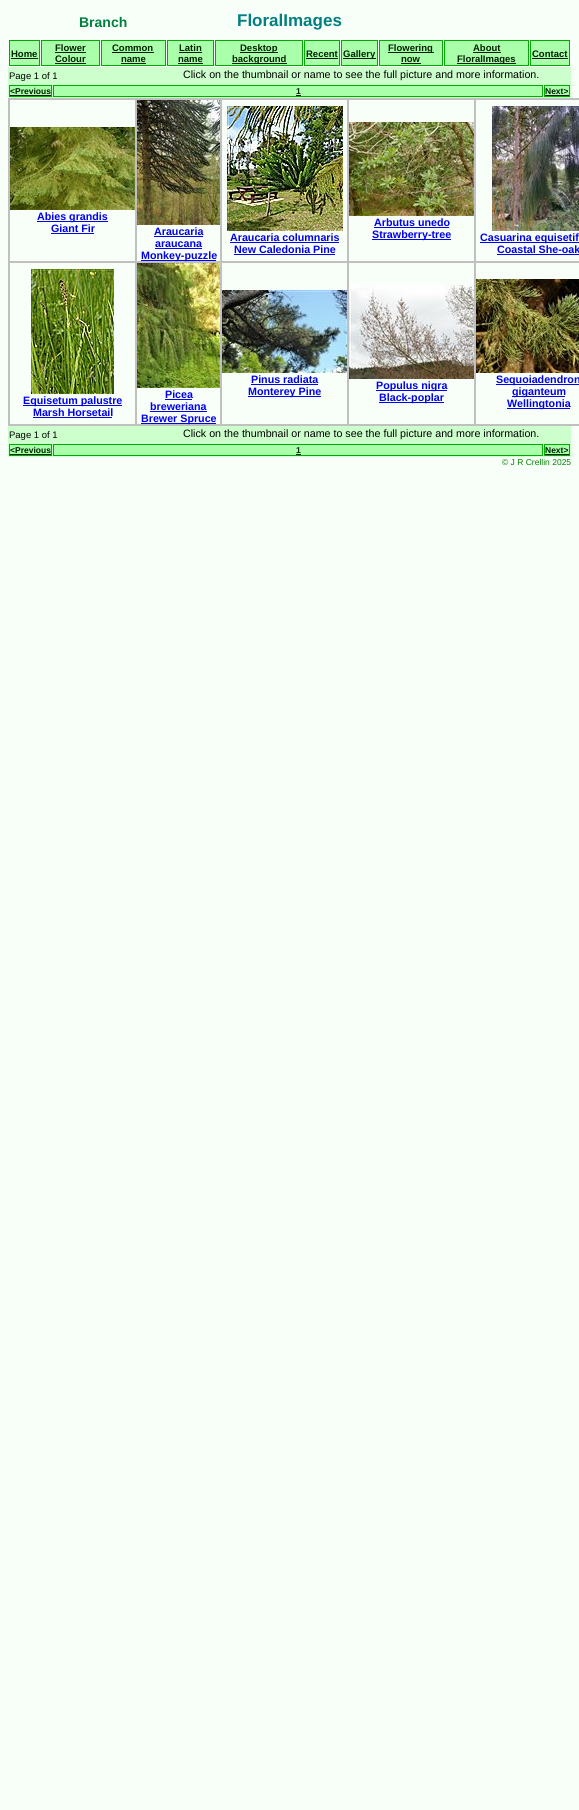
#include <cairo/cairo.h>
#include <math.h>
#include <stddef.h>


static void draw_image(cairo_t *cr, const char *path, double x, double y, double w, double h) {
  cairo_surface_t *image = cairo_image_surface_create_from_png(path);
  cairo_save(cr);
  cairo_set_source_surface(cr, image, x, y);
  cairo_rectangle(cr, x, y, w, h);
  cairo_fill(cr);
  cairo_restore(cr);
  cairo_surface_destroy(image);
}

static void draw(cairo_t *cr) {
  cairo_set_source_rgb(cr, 248 / 255.0, 1, 248 / 255.0);
  cairo_paint(cr);
  cairo_set_source_rgb(cr, 170 / 255.0, 1, 170 / 255.0);
  cairo_rectangle(cr, 9.5, 40.5, 30, 25);
  cairo_fill_preserve(cr);
  cairo_set_source_rgb(cr, 0, 170 / 255.0, 0);
  cairo_set_line_width(cr, 1);
  cairo_stroke(cr);
  cairo_set_source_rgb(cr, 0, 32 / 255.0, 0);
  cairo_rectangle(cr, 11, 58, 27, 1);
  cairo_fill(cr);
  cairo_set_source_rgb(cr, 170 / 255.0, 1, 170 / 255.0);
  cairo_rectangle(cr, 41.5, 40.5, 58, 25);
  cairo_fill_preserve(cr);
  cairo_set_source_rgb(cr, 0, 170 / 255.0, 0);
  cairo_stroke(cr);
  cairo_set_source_rgb(cr, 0, 32 / 255.0, 0);
  cairo_rectangle(cr, 55, 52, 31, 1);
  cairo_fill(cr);
  cairo_rectangle(cr, 55, 63, 31, 1);
  cairo_fill(cr);
  cairo_set_source_rgb(cr, 170 / 255.0, 1, 170 / 255.0);
  cairo_rectangle(cr, 101.5, 40.5, 64, 25);
  cairo_fill_preserve(cr);
  cairo_set_source_rgb(cr, 0, 170 / 255.0, 0);
  cairo_stroke(cr);
  cairo_set_source_rgb(cr, 0, 32 / 255.0, 0);
  cairo_rectangle(cr, 112, 52, 42, 1);
  cairo_fill(cr);
  cairo_rectangle(cr, 121, 63, 25, 1);
  cairo_fill(cr);
  cairo_set_source_rgb(cr, 170 / 255.0, 1, 170 / 255.0);
  cairo_rectangle(cr, 167.5, 40.5, 46, 25);
  cairo_fill_preserve(cr);
  cairo_set_source_rgb(cr, 0, 170 / 255.0, 0);
  cairo_stroke(cr);
  cairo_set_source_rgb(cr, 0, 32 / 255.0, 0);
  cairo_rectangle(cr, 179, 52, 23, 1);
  cairo_fill(cr);
  cairo_rectangle(cr, 178, 63, 25, 1);
  cairo_fill(cr);
  cairo_set_source_rgb(cr, 170 / 255.0, 1, 170 / 255.0);
  cairo_rectangle(cr, 215.5, 40.5, 87, 25);
  cairo_fill_preserve(cr);
  cairo_set_source_rgb(cr, 0, 170 / 255.0, 0);
  cairo_stroke(cr);
  cairo_set_source_rgb(cr, 0, 32 / 255.0, 0);
  cairo_rectangle(cr, 240, 52, 38, 1);
  cairo_fill(cr);
  cairo_rectangle(cr, 232, 63, 55, 1);
  cairo_fill(cr);
  cairo_set_source_rgb(cr, 170 / 255.0, 1, 170 / 255.0);
  cairo_rectangle(cr, 304.5, 40.5, 35, 25);
  cairo_fill_preserve(cr);
  cairo_set_source_rgb(cr, 0, 170 / 255.0, 0);
  cairo_stroke(cr);
  cairo_set_source_rgb(cr, 0, 32 / 255.0, 0);
  cairo_rectangle(cr, 306, 58, 32, 1);
  cairo_fill(cr);
  cairo_set_source_rgb(cr, 170 / 255.0, 1, 170 / 255.0);
  cairo_rectangle(cr, 341.5, 40.5, 36, 25);
  cairo_fill_preserve(cr);
  cairo_set_source_rgb(cr, 0, 170 / 255.0, 0);
  cairo_stroke(cr);
  cairo_set_source_rgb(cr, 0, 32 / 255.0, 0);
  cairo_rectangle(cr, 343, 58, 33, 1);
  cairo_fill(cr);
  cairo_set_source_rgb(cr, 170 / 255.0, 1, 170 / 255.0);
  cairo_rectangle(cr, 379.5, 40.5, 63, 25);
  cairo_fill_preserve(cr);
  cairo_set_source_rgb(cr, 0, 170 / 255.0, 0);
  cairo_stroke(cr);
  cairo_set_source_rgb(cr, 0, 32 / 255.0, 0);
  cairo_rectangle(cr, 388, 52, 46, 1);
  cairo_fill(cr);
  cairo_rectangle(cr, 401, 63, 20, 1);
  cairo_fill(cr);
  cairo_set_source_rgb(cr, 170 / 255.0, 1, 170 / 255.0);
  cairo_rectangle(cr, 444.5, 40.5, 84, 25);
  cairo_fill_preserve(cr);
  cairo_set_source_rgb(cr, 0, 170 / 255.0, 0);
  cairo_stroke(cr);
  cairo_set_source_rgb(cr, 0, 32 / 255.0, 0);
  cairo_rectangle(cr, 473, 52, 28, 1);
  cairo_fill(cr);
  cairo_rectangle(cr, 457, 63, 59, 1);
  cairo_fill(cr);
  cairo_set_source_rgb(cr, 170 / 255.0, 1, 170 / 255.0);
  cairo_rectangle(cr, 530.5, 40.5, 39, 25);
  cairo_fill_preserve(cr);
  cairo_set_source_rgb(cr, 0, 170 / 255.0, 0);
  cairo_stroke(cr);
  cairo_set_source_rgb(cr, 0, 32 / 255.0, 0);
  cairo_rectangle(cr, 532, 58, 36, 1);
  cairo_fill(cr);
  cairo_set_source_rgb(cr, 204 / 255.0, 1, 204 / 255.0);
  cairo_rectangle(cr, 8, 67, 563, 31);
  cairo_fill(cr);
  cairo_set_source_rgb(cr, 170 / 255.0, 1, 170 / 255.0);
  cairo_rectangle(cr, 10, 86, 41, 9);
  cairo_fill(cr);
  cairo_rectangle(cr, 9.5, 85.5, 42, 11);
  cairo_set_source_rgb(cr, 0, 170 / 255.0, 0);
  cairo_stroke(cr);
  cairo_set_source_rgb(cr, 0, 32 / 255.0, 0);
  cairo_rectangle(cr, 10, 95, 41, 1);
  cairo_fill(cr);
  cairo_set_source_rgb(cr, 170 / 255.0, 1, 170 / 255.0);
  cairo_rectangle(cr, 53.5, 85.5, 489, 11);
  cairo_fill_preserve(cr);
  cairo_set_source_rgb(cr, 0, 170 / 255.0, 0);
  cairo_stroke(cr);
  cairo_set_source_rgb(cr, 0, 32 / 255.0, 0);
  cairo_rectangle(cr, 296, 95, 5, 1);
  cairo_fill(cr);
  cairo_set_source_rgb(cr, 170 / 255.0, 1, 170 / 255.0);
  cairo_rectangle(cr, 545, 86, 24, 9);
  cairo_fill(cr);
  cairo_rectangle(cr, 544.5, 85.5, 25, 11);
  cairo_set_source_rgb(cr, 0, 170 / 255.0, 0);
  cairo_stroke(cr);
  cairo_set_source_rgb(cr, 0, 32 / 255.0, 0);
  cairo_rectangle(cr, 545, 95, 24, 1);
  cairo_fill(cr);
  cairo_rectangle(cr, 8.5, 98.5, 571, 327);
  cairo_set_source_rgb(cr, 192 / 255.0, 192 / 255.0, 192 / 255.0);
  cairo_stroke(cr);
  cairo_rectangle(cr, 9.5, 99.5, 126, 162);
  cairo_stroke(cr);
  draw_image(cr, "images/1.png", 10, 127, 125, 83);
  cairo_set_source_rgb(cr, 0, 0, 238 / 255.0);
  cairo_rectangle(cr, 37, 221, 71, 1);
  cairo_fill(cr);
  cairo_rectangle(cr, 51, 233, 43, 1);
  cairo_fill(cr);
  cairo_rectangle(cr, 136.5, 99.5, 84, 162);
  cairo_set_source_rgb(cr, 192 / 255.0, 192 / 255.0, 192 / 255.0);
  cairo_stroke(cr);
  draw_image(cr, "images/2.png", 137, 100, 83, 125);
  cairo_set_source_rgb(cr, 0, 0, 238 / 255.0);
  cairo_rectangle(cr, 154, 236, 49, 1);
  cairo_fill(cr);
  cairo_rectangle(cr, 155, 248, 47, 1);
  cairo_fill(cr);
  cairo_rectangle(cr, 141, 260, 75, 1);
  cairo_fill(cr);
  cairo_rectangle(cr, 221.5, 99.5, 126, 162);
  cairo_set_source_rgb(cr, 192 / 255.0, 192 / 255.0, 192 / 255.0);
  cairo_stroke(cr);
  draw_image(cr, "images/3.png", 227, 106, 116, 125);
  cairo_set_source_rgb(cr, 0, 0, 238 / 255.0);
  cairo_rectangle(cr, 230, 242, 109, 1);
  cairo_fill(cr);
  cairo_rectangle(cr, 234, 254, 101, 1);
  cairo_fill(cr);
  cairo_rectangle(cr, 348.5, 99.5, 126, 162);
  cairo_set_source_rgb(cr, 192 / 255.0, 192 / 255.0, 192 / 255.0);
  cairo_stroke(cr);
  draw_image(cr, "images/4.png", 349, 122, 125, 94);
  cairo_set_source_rgb(cr, 0, 0, 238 / 255.0);
  cairo_rectangle(cr, 374, 227, 75, 1);
  cairo_fill(cr);
  cairo_rectangle(cr, 372, 239, 79, 1);
  cairo_fill(cr);
  cairo_rectangle(cr, 475.5, 99.5, 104, 162);
  cairo_set_source_rgb(cr, 192 / 255.0, 192 / 255.0, 192 / 255.0);
  cairo_stroke(cr);
  draw_image(cr, "images/5.png", 492, 106, 87, 125);
  cairo_set_source_rgb(cr, 0, 0, 238 / 255.0);
  cairo_rectangle(cr, 480, 242, 99, 1);
  cairo_fill(cr);
  cairo_rectangle(cr, 497, 254, 82, 1);
  cairo_fill(cr);
  cairo_rectangle(cr, 9.5, 262.5, 126, 162);
  cairo_set_source_rgb(cr, 192 / 255.0, 192 / 255.0, 192 / 255.0);
  cairo_stroke(cr);
  draw_image(cr, "images/6.png", 31, 269, 83, 125);
  cairo_set_source_rgb(cr, 0, 0, 238 / 255.0);
  cairo_rectangle(cr, 23, 405, 99, 1);
  cairo_fill(cr);
  cairo_rectangle(cr, 33, 417, 79, 1);
  cairo_fill(cr);
  cairo_rectangle(cr, 136.5, 262.5, 84, 162);
  cairo_set_source_rgb(cr, 192 / 255.0, 192 / 255.0, 192 / 255.0);
  cairo_stroke(cr);
  draw_image(cr, "images/7.png", 137, 263, 83, 125);
  cairo_set_source_rgb(cr, 0, 0, 238 / 255.0);
  cairo_rectangle(cr, 165, 399, 27, 1);
  cairo_fill(cr);
  cairo_rectangle(cr, 150, 411, 57, 1);
  cairo_fill(cr);
  cairo_rectangle(cr, 141, 423, 75, 1);
  cairo_fill(cr);
  cairo_rectangle(cr, 221.5, 262.5, 126, 162);
  cairo_set_source_rgb(cr, 192 / 255.0, 192 / 255.0, 192 / 255.0);
  cairo_stroke(cr);
  draw_image(cr, "images/8.png", 222, 290, 125, 83);
  cairo_set_source_rgb(cr, 0, 0, 238 / 255.0);
  cairo_rectangle(cr, 251, 384, 67, 1);
  cairo_fill(cr);
  cairo_rectangle(cr, 248, 396, 73, 1);
  cairo_fill(cr);
  cairo_rectangle(cr, 348.5, 262.5, 126, 162);
  cairo_set_source_rgb(cr, 192 / 255.0, 192 / 255.0, 192 / 255.0);
  cairo_stroke(cr);
  draw_image(cr, "images/9.png", 349, 285, 125, 94);
  cairo_set_source_rgb(cr, 0, 0, 238 / 255.0);
  cairo_rectangle(cr, 376, 390, 71, 1);
  cairo_fill(cr);
  cairo_rectangle(cr, 379, 402, 65, 1);
  cairo_fill(cr);
  cairo_rectangle(cr, 475.5, 262.5, 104, 162);
  cairo_set_source_rgb(cr, 192 / 255.0, 192 / 255.0, 192 / 255.0);
  cairo_stroke(cr);
  draw_image(cr, "images/10.png", 476, 279, 103, 94);
  cairo_set_source_rgb(cr, 0, 0, 238 / 255.0);
  cairo_rectangle(cr, 496, 384, 83, 1);
  cairo_fill(cr);
  cairo_rectangle(cr, 512, 396, 53, 1);
  cairo_fill(cr);
  cairo_rectangle(cr, 507, 408, 63, 1);
  cairo_fill(cr);
  cairo_set_source_rgb(cr, 204 / 255.0, 1, 204 / 255.0);
  cairo_rectangle(cr, 8, 426, 563, 31);
  cairo_fill(cr);
  cairo_set_source_rgb(cr, 170 / 255.0, 1, 170 / 255.0);
  cairo_rectangle(cr, 10, 445, 41, 9);
  cairo_fill(cr);
  cairo_rectangle(cr, 9.5, 444.5, 42, 11);
  cairo_set_source_rgb(cr, 0, 170 / 255.0, 0);
  cairo_stroke(cr);
  cairo_set_source_rgb(cr, 0, 32 / 255.0, 0);
  cairo_rectangle(cr, 10, 454, 41, 1);
  cairo_fill(cr);
  cairo_set_source_rgb(cr, 170 / 255.0, 1, 170 / 255.0);
  cairo_rectangle(cr, 53.5, 444.5, 489, 11);
  cairo_fill_preserve(cr);
  cairo_set_source_rgb(cr, 0, 170 / 255.0, 0);
  cairo_stroke(cr);
  cairo_set_source_rgb(cr, 0, 32 / 255.0, 0);
  cairo_rectangle(cr, 296, 454, 5, 1);
  cairo_fill(cr);
  cairo_set_source_rgb(cr, 170 / 255.0, 1, 170 / 255.0);
  cairo_rectangle(cr, 545, 445, 24, 9);
  cairo_fill(cr);
  cairo_rectangle(cr, 544.5, 444.5, 25, 11);
  cairo_set_source_rgb(cr, 0, 170 / 255.0, 0);
  cairo_stroke(cr);
  cairo_set_source_rgb(cr, 0, 32 / 255.0, 0);
  cairo_rectangle(cr, 545, 454, 24, 1);
  cairo_fill(cr);
  cairo_select_font_face(cr, "Liberation Sans", CAIRO_FONT_SLANT_NORMAL, CAIRO_FONT_WEIGHT_BOLD);
  cairo_set_font_size(cr, 14);
  cairo_set_source_rgb(cr, 0, 128 / 255.0, 64 / 255.0);
  cairo_move_to(cr, 79, 27);
  cairo_show_text(cr, "Branch");
  cairo_set_font_size(cr, 17);
  cairo_set_source_rgb(cr, 0, 128 / 255.0, 128 / 255.0);
  cairo_move_to(cr, 237, 26);
  cairo_show_text(cr, "FloralImages");
  cairo_set_font_size(cr, 9.5);
  cairo_set_source_rgb(cr, 0, 32 / 255.0, 0);
  cairo_move_to(cr, 11, 57);
  cairo_show_text(cr, "Home");
  cairo_move_to(cr, 55, 51);
  cairo_show_text(cr, "Flower");
  cairo_move_to(cr, 55, 62);
  cairo_show_text(cr, "Colour");
  cairo_move_to(cr, 112, 51);
  cairo_show_text(cr, "Common");
  cairo_move_to(cr, 121, 62);
  cairo_show_text(cr, "name");
  cairo_move_to(cr, 179, 51);
  cairo_show_text(cr, "Latin");
  cairo_move_to(cr, 178, 62);
  cairo_show_text(cr, "name");
  cairo_move_to(cr, 240, 51);
  cairo_show_text(cr, "Desktop");
  cairo_move_to(cr, 232, 62);
  cairo_show_text(cr, "background");
  cairo_move_to(cr, 306, 57);
  cairo_show_text(cr, "Recent");
  cairo_move_to(cr, 343, 57);
  cairo_show_text(cr, "Gallery");
  cairo_move_to(cr, 388, 51);
  cairo_show_text(cr, "Flowering");
  cairo_move_to(cr, 401, 62);
  cairo_show_text(cr, "now");
  cairo_move_to(cr, 473, 51);
  cairo_show_text(cr, "About");
  cairo_move_to(cr, 457, 62);
  cairo_show_text(cr, "FloralImages");
  cairo_move_to(cr, 532, 57);
  cairo_show_text(cr, "Contact");
  cairo_select_font_face(cr, "Liberation Sans", CAIRO_FONT_SLANT_NORMAL, CAIRO_FONT_WEIGHT_NORMAL);
  cairo_set_source_rgb(cr, 0, 0, 0);
  cairo_move_to(cr, 9, 79);
  cairo_show_text(cr, "Page 1 of 1");
  cairo_set_font_size(cr, 10.7);
  cairo_move_to(cr, 183, 78);
  cairo_show_text(cr, "Click on the thumbnail or name to see the full picture and more information.");
  cairo_select_font_face(cr, "Liberation Sans", CAIRO_FONT_SLANT_NORMAL, CAIRO_FONT_WEIGHT_BOLD);
  cairo_set_font_size(cr, 8.5);
  cairo_set_source_rgb(cr, 0, 32 / 255.0, 0);
  cairo_move_to(cr, 10, 94);
  cairo_show_text(cr, "<Previous");
  cairo_move_to(cr, 296, 94);
  cairo_show_text(cr, "1");
  cairo_move_to(cr, 545, 94);
  cairo_show_text(cr, "Next>");
  cairo_set_font_size(cr, 10.7);
  cairo_set_source_rgb(cr, 0, 0, 238 / 255.0);
  cairo_move_to(cr, 37, 220);
  cairo_show_text(cr, "Abies grandis");
  cairo_move_to(cr, 51, 232);
  cairo_show_text(cr, "Giant Fir");
  cairo_move_to(cr, 154, 235);
  cairo_show_text(cr, "Araucaria");
  cairo_move_to(cr, 155, 247);
  cairo_show_text(cr, "araucana");
  cairo_move_to(cr, 141, 259);
  cairo_show_text(cr, "Monkey-puzzle");
  cairo_move_to(cr, 230, 241);
  cairo_show_text(cr, "Araucaria columnaris");
  cairo_move_to(cr, 234, 253);
  cairo_show_text(cr, "New Caledonia Pine");
  cairo_move_to(cr, 374, 226);
  cairo_show_text(cr, "Arbutus unedo");
  cairo_move_to(cr, 372, 238);
  cairo_show_text(cr, "Strawberry-tree");
  cairo_move_to(cr, 480, 241);
  cairo_show_text(cr, "Casuarina equisetif");
  cairo_move_to(cr, 497, 253);
  cairo_show_text(cr, "Coastal She-oak");
  cairo_move_to(cr, 23, 404);
  cairo_show_text(cr, "Equisetum palustre");
  cairo_move_to(cr, 33, 416);
  cairo_show_text(cr, "Marsh Horsetail");
  cairo_move_to(cr, 165, 398);
  cairo_show_text(cr, "Picea");
  cairo_move_to(cr, 150, 410);
  cairo_show_text(cr, "breweriana");
  cairo_move_to(cr, 141, 422);
  cairo_show_text(cr, "Brewer Spruce");
  cairo_move_to(cr, 251, 383);
  cairo_show_text(cr, "Pinus radiata");
  cairo_move_to(cr, 248, 395);
  cairo_show_text(cr, "Monterey Pine");
  cairo_move_to(cr, 376, 389);
  cairo_show_text(cr, "Populus nigra");
  cairo_move_to(cr, 379, 401);
  cairo_show_text(cr, "Black-poplar");
  cairo_move_to(cr, 496, 383);
  cairo_show_text(cr, "Sequoiadendron");
  cairo_move_to(cr, 512, 395);
  cairo_show_text(cr, "giganteum");
  cairo_move_to(cr, 507, 407);
  cairo_show_text(cr, "Wellingtonia");
  cairo_select_font_face(cr, "Liberation Sans", CAIRO_FONT_SLANT_NORMAL, CAIRO_FONT_WEIGHT_NORMAL);
  cairo_set_font_size(cr, 9.5);
  cairo_set_source_rgb(cr, 0, 0, 0);
  cairo_move_to(cr, 9, 438);
  cairo_show_text(cr, "Page 1 of 1");
  cairo_set_font_size(cr, 10.7);
  cairo_move_to(cr, 183, 437);
  cairo_show_text(cr, "Click on the thumbnail or name to see the full picture and more information.");
  cairo_select_font_face(cr, "Liberation Sans", CAIRO_FONT_SLANT_NORMAL, CAIRO_FONT_WEIGHT_BOLD);
  cairo_set_font_size(cr, 8.5);
  cairo_set_source_rgb(cr, 0, 32 / 255.0, 0);
  cairo_move_to(cr, 10, 453);
  cairo_show_text(cr, "<Previous");
  cairo_move_to(cr, 296, 453);
  cairo_show_text(cr, "1");
  cairo_move_to(cr, 545, 453);
  cairo_show_text(cr, "Next>");
  cairo_select_font_face(cr, "Liberation Sans", CAIRO_FONT_SLANT_NORMAL, CAIRO_FONT_WEIGHT_NORMAL);
  cairo_set_source_rgb(cr, 0, 128 / 255.0, 0);
  cairo_move_to(cr, 502, 465);
  cairo_show_text(cr, "© J R Crellin 2025");
}

int main(void) {
  cairo_surface_t *surface = cairo_image_surface_create(CAIRO_FORMAT_RGB24, 579, 1810);
  cairo_t *cr = cairo_create(surface);
  cairo_font_options_t *options = cairo_font_options_create();
  cairo_font_options_set_hint_metrics(options, CAIRO_HINT_METRICS_OFF);
  cairo_font_options_set_hint_style(options, CAIRO_HINT_STYLE_NONE);
  cairo_set_font_options(cr, options);
  cairo_set_miter_limit(cr, 4);
  draw(cr);
  cairo_surface_write_to_png(surface, "out.png");
  cairo_font_options_destroy(options);
  cairo_destroy(cr);
  cairo_surface_destroy(surface);
  return 0;
}
